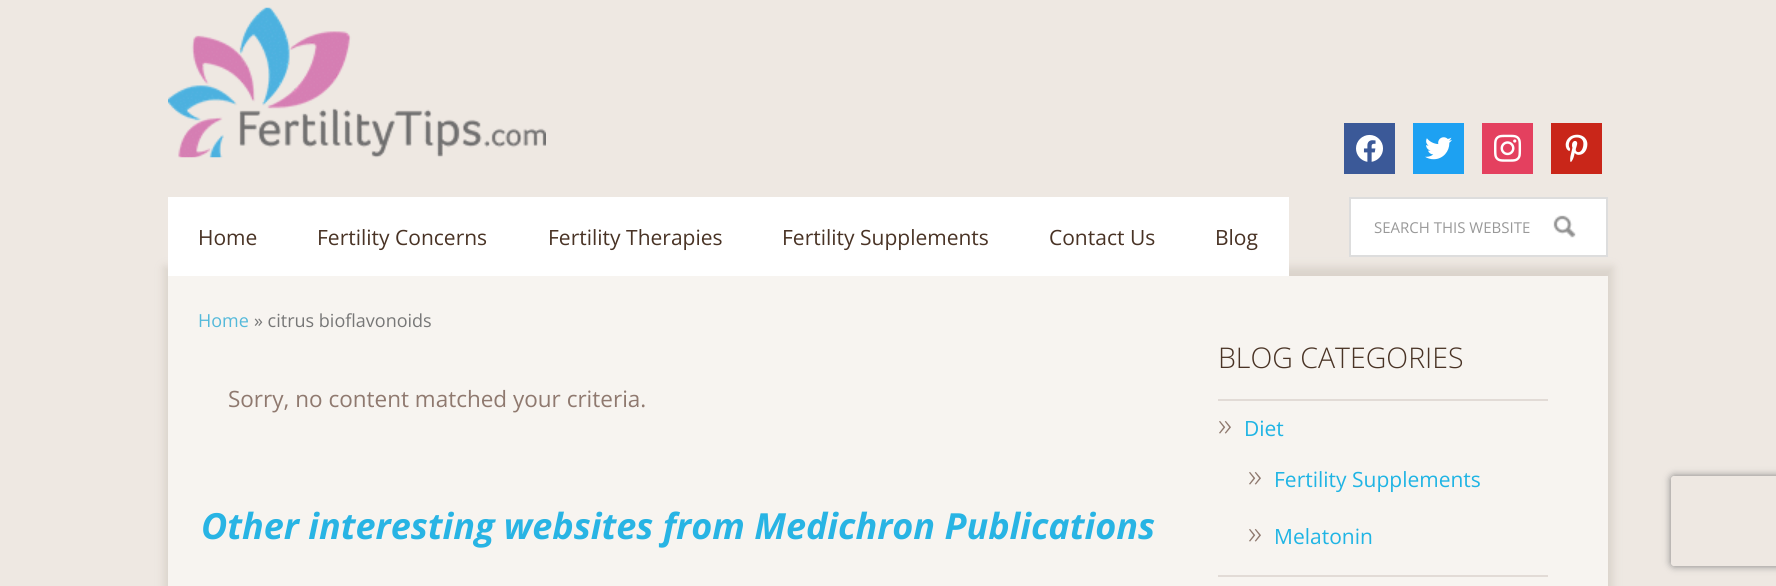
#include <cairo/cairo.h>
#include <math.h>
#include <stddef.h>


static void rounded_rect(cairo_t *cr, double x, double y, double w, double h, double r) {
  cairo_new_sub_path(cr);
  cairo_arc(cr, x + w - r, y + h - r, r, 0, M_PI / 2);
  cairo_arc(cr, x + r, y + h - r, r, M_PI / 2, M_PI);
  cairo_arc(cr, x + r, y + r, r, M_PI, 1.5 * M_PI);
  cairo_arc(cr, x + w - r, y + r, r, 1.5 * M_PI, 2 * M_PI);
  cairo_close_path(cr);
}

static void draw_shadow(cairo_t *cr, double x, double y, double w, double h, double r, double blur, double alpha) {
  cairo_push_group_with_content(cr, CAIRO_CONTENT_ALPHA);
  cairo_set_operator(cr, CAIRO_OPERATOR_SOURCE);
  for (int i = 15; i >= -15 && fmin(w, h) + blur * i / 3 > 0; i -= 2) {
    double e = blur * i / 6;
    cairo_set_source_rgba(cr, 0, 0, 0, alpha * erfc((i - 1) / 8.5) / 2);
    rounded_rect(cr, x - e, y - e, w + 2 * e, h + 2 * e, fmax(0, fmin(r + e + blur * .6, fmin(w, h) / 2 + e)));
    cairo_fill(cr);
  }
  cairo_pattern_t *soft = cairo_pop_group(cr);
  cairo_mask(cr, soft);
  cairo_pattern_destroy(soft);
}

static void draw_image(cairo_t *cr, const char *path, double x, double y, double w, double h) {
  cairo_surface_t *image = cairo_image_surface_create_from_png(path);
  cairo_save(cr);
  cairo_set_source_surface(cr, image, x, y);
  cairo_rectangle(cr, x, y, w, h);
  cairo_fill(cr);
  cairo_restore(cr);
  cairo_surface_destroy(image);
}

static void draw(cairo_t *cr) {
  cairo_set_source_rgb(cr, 238 / 255.0, 232 / 255.0, 226 / 255.0);
  cairo_paint(cr);
  cairo_set_source_rgb(cr, 218 / 255.0, 211 / 255.0, 203 / 255.0);
  draw_shadow(cr, 164, 267, 1449, 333, 0, 4.5, 1);
  cairo_set_source_rgb(cr, 1, 1, 1);
  cairo_rectangle(cr, 168, 197, 1121, 79);
  cairo_fill(cr);
  draw_image(cr, "images/1.png", 168, 7, 378, 151);
  cairo_set_source_rgb(cr, 59 / 255.0, 89 / 255.0, 152 / 255.0);
  cairo_rectangle(cr, 1344, 123, 51, 51);
  cairo_fill(cr);
  draw_image(cr, "images/2.png", 1356, 134, 27, 28);
  cairo_set_source_rgb(cr, 29 / 255.0, 161 / 255.0, 242 / 255.0);
  cairo_rectangle(cr, 1413, 123, 51, 51);
  cairo_fill(cr);
  draw_image(cr, "images/3.png", 1425, 137, 27, 23);
  cairo_set_source_rgb(cr, 228 / 255.0, 64 / 255.0, 95 / 255.0);
  cairo_rectangle(cr, 1482, 123, 51, 51);
  cairo_fill(cr);
  draw_image(cr, "images/4.png", 1494, 134, 28, 28);
  cairo_set_source_rgb(cr, 201 / 255.0, 38 / 255.0, 25 / 255.0);
  cairo_rectangle(cr, 1551, 123, 51, 51);
  cairo_fill(cr);
  draw_image(cr, "images/5.png", 1565, 134, 23, 28);
  cairo_set_source_rgb(cr, 1, 1, 1);
  cairo_rectangle(cr, 1351, 199, 255, 56);
  cairo_fill(cr);
  draw_image(cr, "images/6.png", 1553, 215, 23, 23);
  cairo_rectangle(cr, 1350, 198, 257, 58);
  cairo_set_source_rgb(cr, 221 / 255.0, 221 / 255.0, 221 / 255.0);
  cairo_stroke(cr);
  cairo_set_source_rgb(cr, 247 / 255.0, 244 / 255.0, 240 / 255.0);
  cairo_rectangle(cr, 168, 276, 1440, 310);
  cairo_fill(cr);
  cairo_set_source_rgb(cr, 226 / 255.0, 219 / 255.0, 214 / 255.0);
  cairo_rectangle(cr, 1218, 399, 330, 2);
  cairo_fill(cr);
  cairo_rectangle(cr, 1218, 575, 330, 2);
  cairo_fill(cr);
  cairo_save(cr);
  cairo_set_fill_rule(cr, CAIRO_FILL_RULE_EVEN_ODD);
  cairo_new_path(cr);
  cairo_move_to(cr, 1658, 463);
  cairo_line_to(cr, 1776, 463);
  cairo_line_to(cr, 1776, 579);
  cairo_line_to(cr, 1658, 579);
  cairo_close_path(cr);
  cairo_move_to(cr, 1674, 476);
  cairo_line_to(cr, 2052, 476);
  cairo_curve_to(cr, 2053.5, 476, 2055, 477.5, 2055, 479);
  cairo_line_to(cr, 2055, 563);
  cairo_curve_to(cr, 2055, 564.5, 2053.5, 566, 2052, 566);
  cairo_line_to(cr, 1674, 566);
  cairo_curve_to(cr, 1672.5, 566, 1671, 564.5, 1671, 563);
  cairo_line_to(cr, 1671, 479);
  cairo_curve_to(cr, 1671, 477.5, 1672.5, 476, 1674, 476);
  cairo_close_path(cr);
  cairo_clip(cr);
  cairo_set_source_rgb(cr, 128 / 255.0, 128 / 255.0, 128 / 255.0);
  draw_shadow(cr, 1671, 476, 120, 90, 3, 4, 1);
  cairo_restore(cr);
  cairo_select_font_face(cr, "Open Sans", CAIRO_FONT_SLANT_NORMAL, CAIRO_FONT_WEIGHT_NORMAL);
  cairo_set_font_size(cr, 21);
  cairo_set_source_rgb(cr, 73 / 255.0, 51 / 255.0, 37 / 255.0);
  cairo_move_to(cr, 198, 245);
  cairo_show_text(cr, "Home");
  cairo_move_to(cr, 317, 245);
  cairo_show_text(cr, "Fertility Concerns");
  cairo_move_to(cr, 548, 245);
  cairo_show_text(cr, "Fertility Therapies");
  cairo_move_to(cr, 782, 245);
  cairo_show_text(cr, "Fertility Supplements");
  cairo_move_to(cr, 1049, 245);
  cairo_show_text(cr, "Contact Us");
  cairo_move_to(cr, 1215, 245);
  cairo_show_text(cr, "Blog");
  cairo_set_font_size(cr, 15);
  cairo_set_source_rgb(cr, 153 / 255.0, 153 / 255.0, 153 / 255.0);
  cairo_move_to(cr, 1374, 233);
  cairo_show_text(cr, "SEARCH THIS WEBSITE");
  cairo_set_font_size(cr, 18);
  cairo_set_source_rgb(cr, 84 / 255.0, 185 / 255.0, 218 / 255.0);
  cairo_move_to(cr, 198, 327);
  cairo_show_text(cr, "Home");
  cairo_set_source_rgb(cr, 119 / 255.0, 119 / 255.0, 119 / 255.0);
  cairo_move_to(cr, 254, 327);
  cairo_show_text(cr, "» citrus bioflavonoids");
  cairo_set_font_size(cr, 22.5);
  cairo_set_source_rgb(cr, 143 / 255.0, 121 / 255.0, 111 / 255.0);
  cairo_move_to(cr, 228, 407);
  cairo_show_text(cr, "Sorry, no content matched your criteria.");
  cairo_select_font_face(cr, "Open Sans Light", CAIRO_FONT_SLANT_NORMAL, CAIRO_FONT_WEIGHT_NORMAL);
  cairo_set_font_size(cr, 28.5);
  cairo_set_source_rgb(cr, 73 / 255.0, 51 / 255.0, 37 / 255.0);
  cairo_move_to(cr, 1218, 368);
  cairo_show_text(cr, "BLOG CATEGORIES");
  cairo_set_font_size(cr, 32);
  cairo_set_source_rgb(cr, 143 / 255.0, 121 / 255.0, 111 / 255.0);
  cairo_move_to(cr, 1218, 436);
  cairo_show_text(cr, "»");
  cairo_select_font_face(cr, "Open Sans", CAIRO_FONT_SLANT_NORMAL, CAIRO_FONT_WEIGHT_NORMAL);
  cairo_set_font_size(cr, 21);
  cairo_set_source_rgb(cr, 31 / 255.0, 180 / 255.0, 228 / 255.0);
  cairo_move_to(cr, 1244, 436);
  cairo_show_text(cr, "Diet");
  cairo_select_font_face(cr, "Open Sans Light", CAIRO_FONT_SLANT_NORMAL, CAIRO_FONT_WEIGHT_NORMAL);
  cairo_set_font_size(cr, 32);
  cairo_set_source_rgb(cr, 143 / 255.0, 121 / 255.0, 111 / 255.0);
  cairo_move_to(cr, 1248, 487);
  cairo_show_text(cr, "»");
  cairo_select_font_face(cr, "Open Sans", CAIRO_FONT_SLANT_NORMAL, CAIRO_FONT_WEIGHT_NORMAL);
  cairo_set_font_size(cr, 21);
  cairo_set_source_rgb(cr, 31 / 255.0, 180 / 255.0, 228 / 255.0);
  cairo_move_to(cr, 1274, 487);
  cairo_show_text(cr, "Fertility Supplements");
  cairo_select_font_face(cr, "Open Sans Light", CAIRO_FONT_SLANT_NORMAL, CAIRO_FONT_WEIGHT_NORMAL);
  cairo_set_font_size(cr, 32);
  cairo_set_source_rgb(cr, 143 / 255.0, 121 / 255.0, 111 / 255.0);
  cairo_move_to(cr, 1248, 544);
  cairo_show_text(cr, "»");
  cairo_select_font_face(cr, "Open Sans", CAIRO_FONT_SLANT_NORMAL, CAIRO_FONT_WEIGHT_NORMAL);
  cairo_set_font_size(cr, 21);
  cairo_set_source_rgb(cr, 31 / 255.0, 180 / 255.0, 228 / 255.0);
  cairo_move_to(cr, 1274, 544);
  cairo_show_text(cr, "Melatonin");
  cairo_select_font_face(cr, "Open Sans", CAIRO_FONT_SLANT_ITALIC, CAIRO_FONT_WEIGHT_BOLD);
  cairo_set_font_size(cr, 36);
  cairo_set_source_rgb(cr, 40 / 255.0, 180 / 255.0, 228 / 255.0);
  cairo_move_to(cr, 201, 539);
  cairo_show_text(cr, "Other interesting websites from Medichron Publications");
}

int main(void) {
  cairo_surface_t *surface = cairo_image_surface_create(CAIRO_FORMAT_RGB24, 1776, 586);
  cairo_t *cr = cairo_create(surface);
  cairo_font_options_t *options = cairo_font_options_create();
  cairo_font_options_set_hint_metrics(options, CAIRO_HINT_METRICS_OFF);
  cairo_font_options_set_hint_style(options, CAIRO_HINT_STYLE_NONE);
  cairo_set_font_options(cr, options);
  cairo_set_miter_limit(cr, 4);
  draw(cr);
  cairo_surface_write_to_png(surface, "out.png");
  cairo_font_options_destroy(options);
  cairo_destroy(cr);
  cairo_surface_destroy(surface);
  return 0;
}
